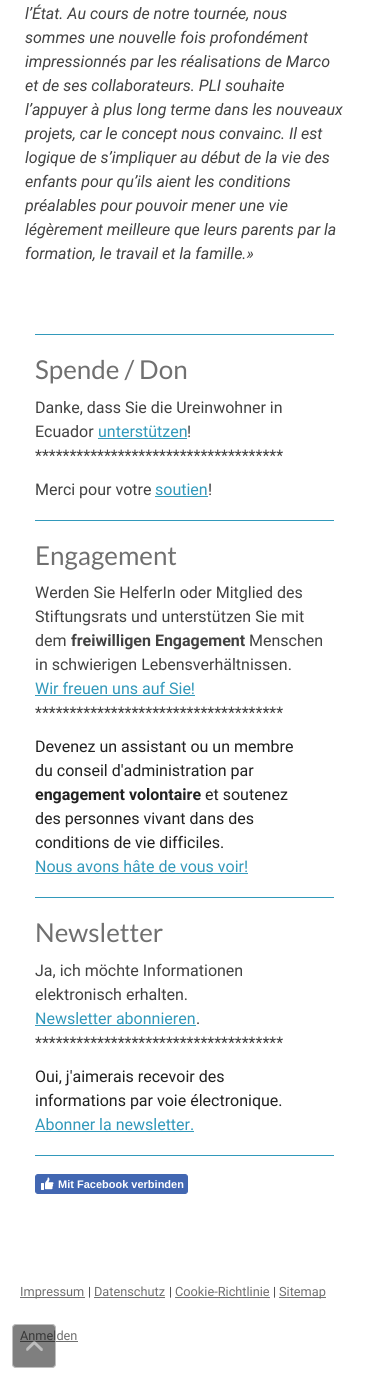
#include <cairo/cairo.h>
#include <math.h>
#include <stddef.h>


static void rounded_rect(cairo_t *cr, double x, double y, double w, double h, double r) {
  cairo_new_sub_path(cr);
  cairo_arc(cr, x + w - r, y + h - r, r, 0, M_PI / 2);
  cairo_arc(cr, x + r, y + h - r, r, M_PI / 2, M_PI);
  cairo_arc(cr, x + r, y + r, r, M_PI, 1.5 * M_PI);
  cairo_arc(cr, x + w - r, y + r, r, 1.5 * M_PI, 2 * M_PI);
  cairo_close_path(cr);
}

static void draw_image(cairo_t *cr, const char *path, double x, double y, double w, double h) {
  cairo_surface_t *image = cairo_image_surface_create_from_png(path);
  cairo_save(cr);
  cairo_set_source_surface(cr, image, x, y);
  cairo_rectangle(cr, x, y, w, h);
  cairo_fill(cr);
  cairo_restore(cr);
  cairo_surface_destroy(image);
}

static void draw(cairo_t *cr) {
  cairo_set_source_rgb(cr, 1, 1, 1);
  cairo_paint(cr);
  cairo_set_source_rgb(cr, 50 / 255.0, 153 / 255.0, 187 / 255.0);
  cairo_rectangle(cr, 35, 334, 299, 1);
  cairo_fill(cr);
  cairo_rectangle(cr, 98, 438, 89, 1);
  cairo_fill(cr);
  cairo_rectangle(cr, 155, 496, 53, 1);
  cairo_fill(cr);
  cairo_rectangle(cr, 35, 520, 299, 1);
  cairo_fill(cr);
  cairo_rectangle(cr, 35, 695, 160, 1);
  cairo_fill(cr);
  cairo_rectangle(cr, 35, 873, 213, 1);
  cairo_fill(cr);
  cairo_rectangle(cr, 35, 897, 299, 1);
  cairo_fill(cr);
  cairo_rectangle(cr, 35, 1025, 161, 1);
  cairo_fill(cr);
  cairo_rectangle(cr, 35, 1131, 159, 1);
  cairo_fill(cr);
  cairo_rectangle(cr, 35, 1155, 299, 1);
  cairo_fill(cr);
  cairo_set_source_rgb(cr, 66 / 255.0, 103 / 255.0, 178 / 255.0);
  rounded_rect(cr, 35.5, 1174.5, 152, 19, 2.5);
  cairo_fill_preserve(cr);
  cairo_set_line_width(cr, 1);
  cairo_stroke(cr);
  draw_image(cr, "images/1.png", 41, 1177, 13, 13);
  cairo_set_source_rgb(cr, 112 / 255.0, 112 / 255.0, 112 / 255.0);
  cairo_rectangle(cr, 20, 1297, 65, 1);
  cairo_fill(cr);
  cairo_rectangle(cr, 94, 1297, 71, 1);
  cairo_fill(cr);
  cairo_rectangle(cr, 175, 1297, 95, 1);
  cairo_fill(cr);
  cairo_rectangle(cr, 279, 1297, 47, 1);
  cairo_fill(cr);
  cairo_rectangle(cr, 20, 1341, 58, 1);
  cairo_fill(cr);
  cairo_select_font_face(cr, "Roboto", CAIRO_FONT_SLANT_ITALIC, CAIRO_FONT_WEIGHT_NORMAL);
  cairo_set_font_size(cr, 16);
  cairo_set_source_rgb(cr, 66 / 255.0, 66 / 255.0, 66 / 255.0);
  cairo_move_to(cr, 25, 19);
  cairo_show_text(cr, "l’État. Au cours de notre tournée, nous");
  cairo_move_to(cr, 25, 43);
  cairo_show_text(cr, "sommes une nouvelle fois profondément");
  cairo_move_to(cr, 25, 67);
  cairo_show_text(cr, "impressionnés par les réalisations de Marco");
  cairo_move_to(cr, 25, 91);
  cairo_show_text(cr, "et de ses collaborateurs. PLI souhaite");
  cairo_move_to(cr, 25, 115);
  cairo_show_text(cr, "l’appuyer à plus long terme dans les nouveaux");
  cairo_move_to(cr, 25, 139);
  cairo_show_text(cr, "projets, car le concept nous convainc. Il est");
  cairo_move_to(cr, 25, 163);
  cairo_show_text(cr, "logique de s’impliquer au début de la vie des");
  cairo_move_to(cr, 25, 187);
  cairo_show_text(cr, "enfants pour qu’ils aient les conditions");
  cairo_move_to(cr, 25, 211);
  cairo_show_text(cr, "préalables pour pouvoir mener une vie");
  cairo_move_to(cr, 25, 235);
  cairo_show_text(cr, "légèrement meilleure que leurs parents par la");
  cairo_move_to(cr, 25, 259);
  cairo_show_text(cr, "formation, le travail et la famille.»");
  cairo_select_font_face(cr, "Lato", CAIRO_FONT_SLANT_NORMAL, CAIRO_FONT_WEIGHT_NORMAL);
  cairo_set_font_size(cr, 26);
  cairo_set_source_rgb(cr, 112 / 255.0, 112 / 255.0, 112 / 255.0);
  cairo_move_to(cr, 35, 379);
  cairo_show_text(cr, "Spende / Don");
  cairo_select_font_face(cr, "Roboto", CAIRO_FONT_SLANT_NORMAL, CAIRO_FONT_WEIGHT_NORMAL);
  cairo_set_font_size(cr, 16);
  cairo_set_source_rgb(cr, 66 / 255.0, 66 / 255.0, 66 / 255.0);
  cairo_move_to(cr, 35, 413);
  cairo_show_text(cr, "Danke, dass Sie die Ureinwohner in");
  cairo_move_to(cr, 35, 437);
  cairo_show_text(cr, "Ecuador");
  cairo_set_source_rgb(cr, 50 / 255.0, 153 / 255.0, 187 / 255.0);
  cairo_move_to(cr, 98, 437);
  cairo_show_text(cr, "unterstützen");
  cairo_set_source_rgb(cr, 66 / 255.0, 66 / 255.0, 66 / 255.0);
  cairo_move_to(cr, 187, 437);
  cairo_show_text(cr, "!");
  cairo_move_to(cr, 35, 461);
  cairo_show_text(cr, "************************************");
  cairo_move_to(cr, 35, 495);
  cairo_show_text(cr, "Merci pour votre");
  cairo_set_source_rgb(cr, 50 / 255.0, 153 / 255.0, 187 / 255.0);
  cairo_move_to(cr, 155, 495);
  cairo_show_text(cr, "soutien");
  cairo_set_source_rgb(cr, 66 / 255.0, 66 / 255.0, 66 / 255.0);
  cairo_move_to(cr, 208, 495);
  cairo_show_text(cr, "!");
  cairo_select_font_face(cr, "Lato", CAIRO_FONT_SLANT_NORMAL, CAIRO_FONT_WEIGHT_NORMAL);
  cairo_set_font_size(cr, 26);
  cairo_set_source_rgb(cr, 112 / 255.0, 112 / 255.0, 112 / 255.0);
  cairo_move_to(cr, 35, 565);
  cairo_show_text(cr, "Engagement");
  cairo_select_font_face(cr, "Roboto", CAIRO_FONT_SLANT_NORMAL, CAIRO_FONT_WEIGHT_NORMAL);
  cairo_set_font_size(cr, 16);
  cairo_set_source_rgb(cr, 66 / 255.0, 66 / 255.0, 66 / 255.0);
  cairo_move_to(cr, 35, 598);
  cairo_show_text(cr, "Werden Sie HelferIn oder Mitglied des");
  cairo_move_to(cr, 35, 622);
  cairo_show_text(cr, "Stiftungsrats und unterstützen Sie mit");
  cairo_move_to(cr, 35, 646);
  cairo_show_text(cr, "dem");
  cairo_select_font_face(cr, "Roboto", CAIRO_FONT_SLANT_NORMAL, CAIRO_FONT_WEIGHT_BOLD);
  cairo_move_to(cr, 71, 646);
  cairo_show_text(cr, "freiwilligen Engagement");
  cairo_select_font_face(cr, "Roboto", CAIRO_FONT_SLANT_NORMAL, CAIRO_FONT_WEIGHT_NORMAL);
  cairo_move_to(cr, 249, 646);
  cairo_show_text(cr, "Menschen");
  cairo_move_to(cr, 35, 670);
  cairo_show_text(cr, "in schwierigen Lebensverhältnissen.");
  cairo_set_source_rgb(cr, 50 / 255.0, 153 / 255.0, 187 / 255.0);
  cairo_move_to(cr, 35, 694);
  cairo_show_text(cr, "Wir freuen uns auf Sie!");
  cairo_set_source_rgb(cr, 66 / 255.0, 66 / 255.0, 66 / 255.0);
  cairo_move_to(cr, 35, 718);
  cairo_show_text(cr, "************************************");
  cairo_set_source_rgb(cr, 33 / 255.0, 33 / 255.0, 33 / 255.0);
  cairo_move_to(cr, 35, 752);
  cairo_show_text(cr, "Devenez un assistant ou un membre");
  cairo_move_to(cr, 35, 776);
  cairo_show_text(cr, "du conseil d'administration par");
  cairo_select_font_face(cr, "Roboto", CAIRO_FONT_SLANT_NORMAL, CAIRO_FONT_WEIGHT_BOLD);
  cairo_move_to(cr, 35, 800);
  cairo_show_text(cr, "engagement volontaire");
  cairo_select_font_face(cr, "Roboto", CAIRO_FONT_SLANT_NORMAL, CAIRO_FONT_WEIGHT_NORMAL);
  cairo_move_to(cr, 205, 800);
  cairo_show_text(cr, "et soutenez");
  cairo_move_to(cr, 35, 824);
  cairo_show_text(cr, "des personnes vivant dans des");
  cairo_move_to(cr, 35, 848);
  cairo_show_text(cr, "conditions de vie difficiles.");
  cairo_set_source_rgb(cr, 50 / 255.0, 153 / 255.0, 187 / 255.0);
  cairo_move_to(cr, 35, 872);
  cairo_show_text(cr, "Nous avons hâte de vous voir!");
  cairo_select_font_face(cr, "Lato", CAIRO_FONT_SLANT_NORMAL, CAIRO_FONT_WEIGHT_NORMAL);
  cairo_set_font_size(cr, 26);
  cairo_set_source_rgb(cr, 112 / 255.0, 112 / 255.0, 112 / 255.0);
  cairo_move_to(cr, 35, 942);
  cairo_show_text(cr, "Newsletter");
  cairo_select_font_face(cr, "Roboto", CAIRO_FONT_SLANT_NORMAL, CAIRO_FONT_WEIGHT_NORMAL);
  cairo_set_font_size(cr, 16);
  cairo_set_source_rgb(cr, 66 / 255.0, 66 / 255.0, 66 / 255.0);
  cairo_move_to(cr, 35, 976);
  cairo_show_text(cr, "Ja, ich möchte Informationen");
  cairo_move_to(cr, 35, 1000);
  cairo_show_text(cr, "elektronisch erhalten.");
  cairo_set_source_rgb(cr, 50 / 255.0, 153 / 255.0, 187 / 255.0);
  cairo_move_to(cr, 35, 1024);
  cairo_show_text(cr, "Newsletter abonnieren");
  cairo_set_source_rgb(cr, 66 / 255.0, 66 / 255.0, 66 / 255.0);
  cairo_move_to(cr, 196, 1024);
  cairo_show_text(cr, ".");
  cairo_move_to(cr, 35, 1048);
  cairo_show_text(cr, "************************************");
  cairo_set_source_rgb(cr, 33 / 255.0, 33 / 255.0, 33 / 255.0);
  cairo_move_to(cr, 35, 1082);
  cairo_show_text(cr, "Oui, j'aimerais recevoir des");
  cairo_move_to(cr, 35, 1106);
  cairo_show_text(cr, "informations par voie électronique.");
  cairo_set_source_rgb(cr, 50 / 255.0, 153 / 255.0, 187 / 255.0);
  cairo_move_to(cr, 35, 1130);
  cairo_show_text(cr, "Abonner la newsletter.");
  cairo_select_font_face(cr, "Liberation Sans", CAIRO_FONT_SLANT_NORMAL, CAIRO_FONT_WEIGHT_BOLD);
  cairo_set_font_size(cr, 11);
  cairo_set_source_rgb(cr, 1, 1, 1);
  cairo_move_to(cr, 58, 1188);
  cairo_show_text(cr, "Mit Facebook verbinden");
  cairo_select_font_face(cr, "Roboto", CAIRO_FONT_SLANT_NORMAL, CAIRO_FONT_WEIGHT_NORMAL);
  cairo_set_font_size(cr, 12.75);
  cairo_set_source_rgb(cr, 112 / 255.0, 112 / 255.0, 112 / 255.0);
  cairo_move_to(cr, 20, 1296);
  cairo_show_text(cr, "Impressum");
  cairo_set_source_rgb(cr, 66 / 255.0, 66 / 255.0, 66 / 255.0);
  cairo_move_to(cr, 88, 1296);
  cairo_show_text(cr, "|");
  cairo_set_source_rgb(cr, 112 / 255.0, 112 / 255.0, 112 / 255.0);
  cairo_move_to(cr, 94, 1296);
  cairo_show_text(cr, "Datenschutz");
  cairo_set_source_rgb(cr, 66 / 255.0, 66 / 255.0, 66 / 255.0);
  cairo_move_to(cr, 169, 1296);
  cairo_show_text(cr, "|");
  cairo_set_source_rgb(cr, 112 / 255.0, 112 / 255.0, 112 / 255.0);
  cairo_move_to(cr, 175, 1296);
  cairo_show_text(cr, "Cookie-Richtlinie");
  cairo_set_source_rgb(cr, 66 / 255.0, 66 / 255.0, 66 / 255.0);
  cairo_move_to(cr, 273, 1296);
  cairo_show_text(cr, "|");
  cairo_set_source_rgb(cr, 112 / 255.0, 112 / 255.0, 112 / 255.0);
  cairo_move_to(cr, 279, 1296);
  cairo_show_text(cr, "Sitemap");
  cairo_move_to(cr, 20, 1340);
  cairo_show_text(cr, "Anmelden");
  cairo_set_source_rgba(cr, 0, 0, 0, 0.5);
  rounded_rect(cr, 12, 1324, 44, 44, 4);
  cairo_fill(cr);
  rounded_rect(cr, 12.5, 1324.5, 43, 43, 3.5);
  cairo_set_source_rgba(cr, 1, 1, 1, 0.5);
  cairo_stroke(cr);
  draw_image(cr, "images/2.png", 26, 1341, 17, 10);
}

int main(void) {
  cairo_surface_t *surface = cairo_image_surface_create(CAIRO_FORMAT_RGB24, 369, 1378);
  cairo_t *cr = cairo_create(surface);
  cairo_font_options_t *options = cairo_font_options_create();
  cairo_font_options_set_hint_metrics(options, CAIRO_HINT_METRICS_OFF);
  cairo_font_options_set_hint_style(options, CAIRO_HINT_STYLE_NONE);
  cairo_set_font_options(cr, options);
  cairo_set_miter_limit(cr, 4);
  draw(cr);
  cairo_surface_write_to_png(surface, "out.png");
  cairo_font_options_destroy(options);
  cairo_destroy(cr);
  cairo_surface_destroy(surface);
  return 0;
}
